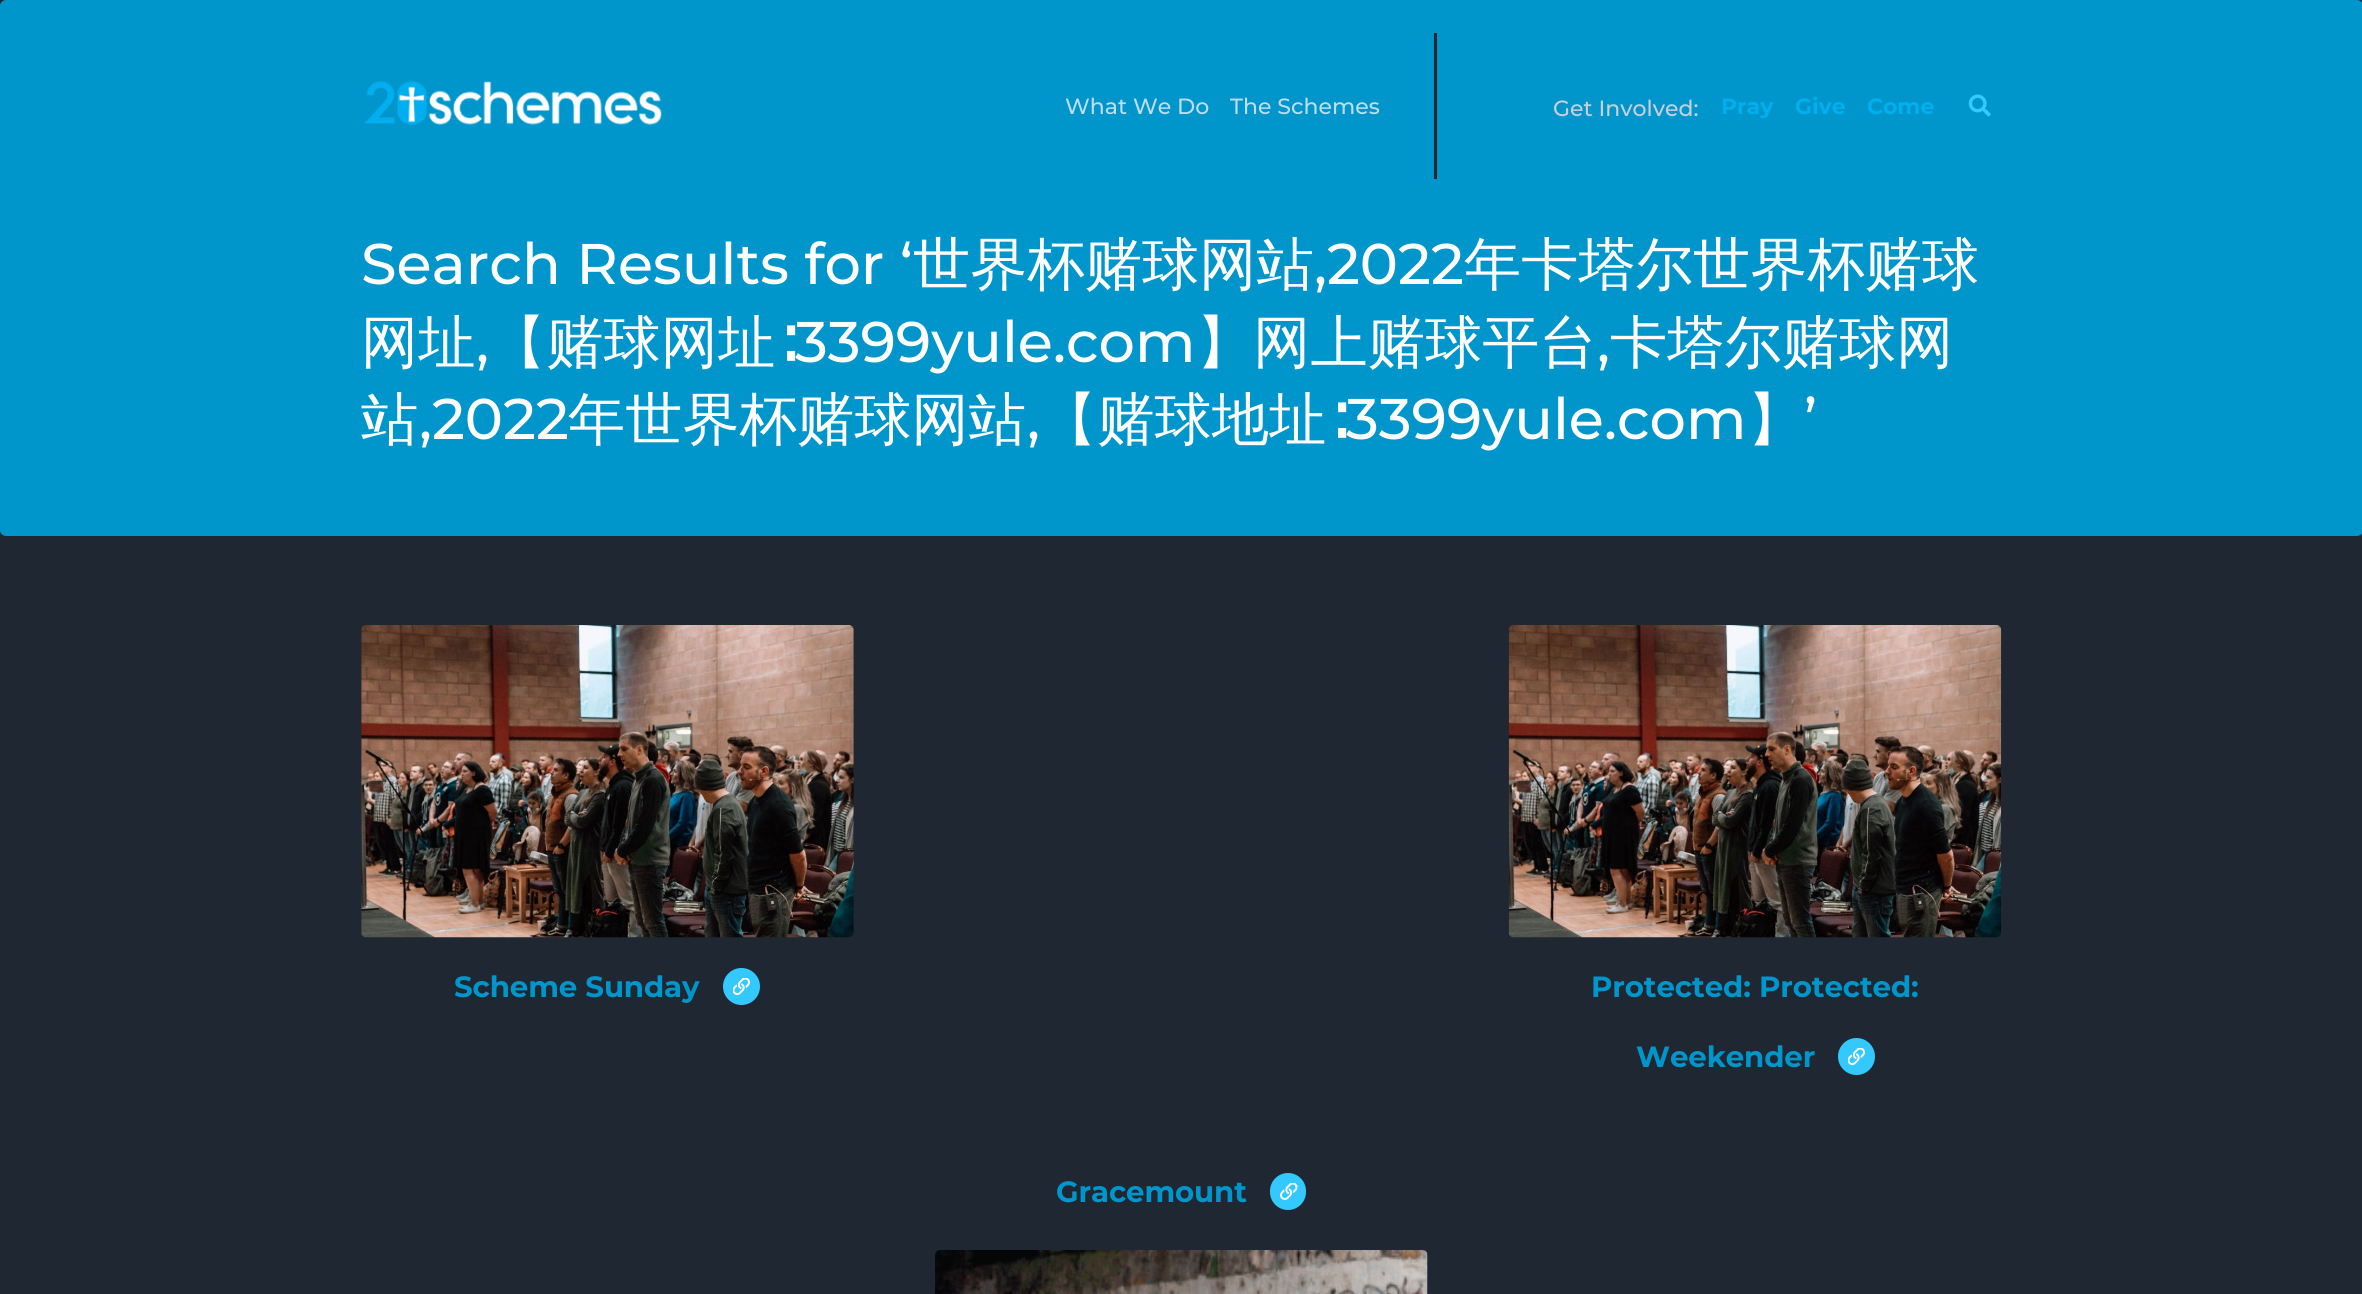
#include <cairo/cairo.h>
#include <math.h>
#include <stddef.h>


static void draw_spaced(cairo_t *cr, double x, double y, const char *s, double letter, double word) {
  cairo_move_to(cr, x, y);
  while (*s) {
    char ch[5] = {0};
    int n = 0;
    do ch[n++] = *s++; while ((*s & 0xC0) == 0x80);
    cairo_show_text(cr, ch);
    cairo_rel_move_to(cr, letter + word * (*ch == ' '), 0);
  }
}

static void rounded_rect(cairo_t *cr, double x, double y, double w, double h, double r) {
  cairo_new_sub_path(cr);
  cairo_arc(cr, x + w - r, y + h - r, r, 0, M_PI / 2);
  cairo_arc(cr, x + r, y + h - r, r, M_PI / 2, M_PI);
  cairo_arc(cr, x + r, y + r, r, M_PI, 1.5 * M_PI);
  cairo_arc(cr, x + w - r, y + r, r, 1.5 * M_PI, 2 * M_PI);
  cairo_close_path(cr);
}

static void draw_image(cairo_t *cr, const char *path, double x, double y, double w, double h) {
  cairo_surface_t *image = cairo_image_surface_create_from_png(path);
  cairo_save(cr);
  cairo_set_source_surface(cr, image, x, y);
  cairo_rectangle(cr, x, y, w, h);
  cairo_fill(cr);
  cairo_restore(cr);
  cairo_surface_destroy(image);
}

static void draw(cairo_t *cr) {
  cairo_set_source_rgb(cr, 31 / 255.0, 40 / 255.0, 50 / 255.0);
  cairo_paint(cr);
  cairo_set_source_rgb(cr, 0, 150 / 255.0, 204 / 255.0);
  rounded_rect(cr, 0, 0, 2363, 536, 6);
  cairo_fill(cr);
  draw_image(cr, "images/1.png", 364, 81, 298, 44);
  cairo_set_source_rgb(cr, 31 / 255.0, 40 / 255.0, 50 / 255.0);
  cairo_rectangle(cr, 1434, 33, 3, 146);
  cairo_fill(cr);
  draw_image(cr, "images/2.png", 1968, 94, 23, 23);
  draw_image(cr, "images/3.png", 361, 625, 493, 313);
  cairo_set_source_rgb(cr, 51 / 255.0, 201 / 255.0, 1);
  cairo_arc(cr, 741.5, 986.5, 18.5, 0, 2 * M_PI);
  cairo_fill(cr);
  draw_image(cr, "images/4.png", 733, 978, 17, 17);
  draw_image(cr, "images/5.png", 1508, 625, 494, 313);
  cairo_arc(cr, 1856.5, 1056.5, 18.5, 0, 2 * M_PI);
  cairo_fill(cr);
  draw_image(cr, "images/4.png", 1848, 1048, 17, 17);
  rounded_rect(cr, 1270, 1173, 36, 37, 18);
  cairo_fill(cr);
  draw_image(cr, "images/6.png", 1280, 1183, 18, 17);
  draw_image(cr, "images/7.png", 935, 1250, 493, 44);
  cairo_select_font_face(cr, "Montserrat Medium", CAIRO_FONT_SLANT_NORMAL, CAIRO_FONT_WEIGHT_NORMAL);
  cairo_set_font_size(cr, 22);
  cairo_set_source_rgb(cr, 190 / 255.0, 221 / 255.0, 234 / 255.0);
  cairo_move_to(cr, 1065, 114);
  cairo_show_text(cr, "What We Do");
  cairo_move_to(cr, 1230, 114);
  cairo_show_text(cr, "The Schemes");
  cairo_set_source_rgb(cr, 202 / 255.0, 208 / 255.0, 216 / 255.0);
  cairo_move_to(cr, 1553, 116);
  cairo_show_text(cr, "Get Involved:");
  cairo_select_font_face(cr, "Montserrat", CAIRO_FONT_SLANT_NORMAL, CAIRO_FONT_WEIGHT_BOLD);
  cairo_set_source_rgb(cr, 0, 175 / 255.0, 239 / 255.0);
  cairo_move_to(cr, 1721, 114);
  cairo_show_text(cr, "Pray");
  cairo_move_to(cr, 1795, 114);
  cairo_show_text(cr, "Give");
  cairo_move_to(cr, 1867, 114);
  cairo_show_text(cr, "Come");
  cairo_select_font_face(cr, "Montserrat Medium", CAIRO_FONT_SLANT_NORMAL, CAIRO_FONT_WEIGHT_NORMAL);
  cairo_set_font_size(cr, 57.25);
  cairo_set_source_rgb(cr, 1, 1, 1);
  cairo_move_to(cr, 361, 284);
  cairo_show_text(cr, "Search Results for ‘");
  cairo_select_font_face(cr, "WenQuanYi Zen Hei Medium", CAIRO_FONT_SLANT_NORMAL, CAIRO_FONT_WEIGHT_NORMAL);
  cairo_move_to(cr, 913, 284);
  cairo_show_text(cr, "世界杯赌球网站");
  cairo_select_font_face(cr, "Montserrat Medium", CAIRO_FONT_SLANT_NORMAL, CAIRO_FONT_WEIGHT_NORMAL);
  cairo_move_to(cr, 1314, 284);
  cairo_show_text(cr, ",2022");
  cairo_select_font_face(cr, "WenQuanYi Zen Hei Medium", CAIRO_FONT_SLANT_NORMAL, CAIRO_FONT_WEIGHT_NORMAL);
  cairo_move_to(cr, 1464, 284);
  cairo_show_text(cr, "年卡塔尔世界杯赌球");
  cairo_move_to(cr, 361, 362);
  cairo_show_text(cr, "网址");
  cairo_select_font_face(cr, "Montserrat Medium", CAIRO_FONT_SLANT_NORMAL, CAIRO_FONT_WEIGHT_NORMAL);
  cairo_move_to(cr, 476, 362);
  cairo_show_text(cr, ",");
  cairo_select_font_face(cr, "WenQuanYi Zen Hei Medium", CAIRO_FONT_SLANT_NORMAL, CAIRO_FONT_WEIGHT_NORMAL);
  cairo_move_to(cr, 489, 362);
  cairo_show_text(cr, "【赌球网址∶");
  cairo_select_font_face(cr, "Montserrat Medium", CAIRO_FONT_SLANT_NORMAL, CAIRO_FONT_WEIGHT_NORMAL);
  cairo_move_to(cr, 795, 362);
  cairo_show_text(cr, "3399yule.com");
  cairo_select_font_face(cr, "WenQuanYi Zen Hei Medium", CAIRO_FONT_SLANT_NORMAL, CAIRO_FONT_WEIGHT_NORMAL);
  cairo_move_to(cr, 1196, 362);
  cairo_show_text(cr, "】网上赌球平台");
  cairo_select_font_face(cr, "Montserrat Medium", CAIRO_FONT_SLANT_NORMAL, CAIRO_FONT_WEIGHT_NORMAL);
  cairo_move_to(cr, 1597, 362);
  cairo_show_text(cr, ",");
  cairo_select_font_face(cr, "WenQuanYi Zen Hei Medium", CAIRO_FONT_SLANT_NORMAL, CAIRO_FONT_WEIGHT_NORMAL);
  cairo_move_to(cr, 1610, 362);
  cairo_show_text(cr, "卡塔尔赌球网");
  cairo_move_to(cr, 361, 439);
  cairo_show_text(cr, "站");
  cairo_select_font_face(cr, "Montserrat Medium", CAIRO_FONT_SLANT_NORMAL, CAIRO_FONT_WEIGHT_NORMAL);
  cairo_move_to(cr, 419, 439);
  cairo_show_text(cr, ",2022");
  cairo_select_font_face(cr, "WenQuanYi Zen Hei Medium", CAIRO_FONT_SLANT_NORMAL, CAIRO_FONT_WEIGHT_NORMAL);
  cairo_move_to(cr, 568, 439);
  cairo_show_text(cr, "年世界杯赌球网站");
  cairo_select_font_face(cr, "Montserrat Medium", CAIRO_FONT_SLANT_NORMAL, CAIRO_FONT_WEIGHT_NORMAL);
  cairo_move_to(cr, 1027, 439);
  cairo_show_text(cr, ",");
  cairo_select_font_face(cr, "WenQuanYi Zen Hei Medium", CAIRO_FONT_SLANT_NORMAL, CAIRO_FONT_WEIGHT_NORMAL);
  cairo_move_to(cr, 1040, 439);
  cairo_show_text(cr, "【赌球地址∶");
  cairo_select_font_face(cr, "Montserrat Medium", CAIRO_FONT_SLANT_NORMAL, CAIRO_FONT_WEIGHT_NORMAL);
  cairo_move_to(cr, 1346, 439);
  cairo_show_text(cr, "3399yule.com");
  cairo_select_font_face(cr, "WenQuanYi Zen Hei Medium", CAIRO_FONT_SLANT_NORMAL, CAIRO_FONT_WEIGHT_NORMAL);
  cairo_move_to(cr, 1747, 439);
  cairo_show_text(cr, "】");
  cairo_select_font_face(cr, "Montserrat Medium", CAIRO_FONT_SLANT_NORMAL, CAIRO_FONT_WEIGHT_NORMAL);
  cairo_move_to(cr, 1804, 439);
  cairo_show_text(cr, "’");
  cairo_select_font_face(cr, "Montserrat", CAIRO_FONT_SLANT_NORMAL, CAIRO_FONT_WEIGHT_BOLD);
  cairo_set_font_size(cr, 29.25);
  cairo_set_source_rgb(cr, 0, 150 / 255.0, 204 / 255.0);
  draw_spaced(cr, 454, 997, "Scheme Sunday", -0.1, 0);
  draw_spaced(cr, 1591, 997, "Protected: Protected:", -0.1, 0);
  draw_spaced(cr, 1636, 1067, "Weekender", -0.1, 0);
  draw_spaced(cr, 1056, 1202, "Gracemount", -0.1, 0);
}

int main(void) {
  cairo_surface_t *surface = cairo_image_surface_create(CAIRO_FORMAT_RGB24, 2362, 1294);
  cairo_t *cr = cairo_create(surface);
  cairo_font_options_t *options = cairo_font_options_create();
  cairo_font_options_set_hint_metrics(options, CAIRO_HINT_METRICS_OFF);
  cairo_font_options_set_hint_style(options, CAIRO_HINT_STYLE_NONE);
  cairo_set_font_options(cr, options);
  cairo_set_miter_limit(cr, 4);
  draw(cr);
  cairo_surface_write_to_png(surface, "out.png");
  cairo_font_options_destroy(options);
  cairo_destroy(cr);
  cairo_surface_destroy(surface);
  return 0;
}
